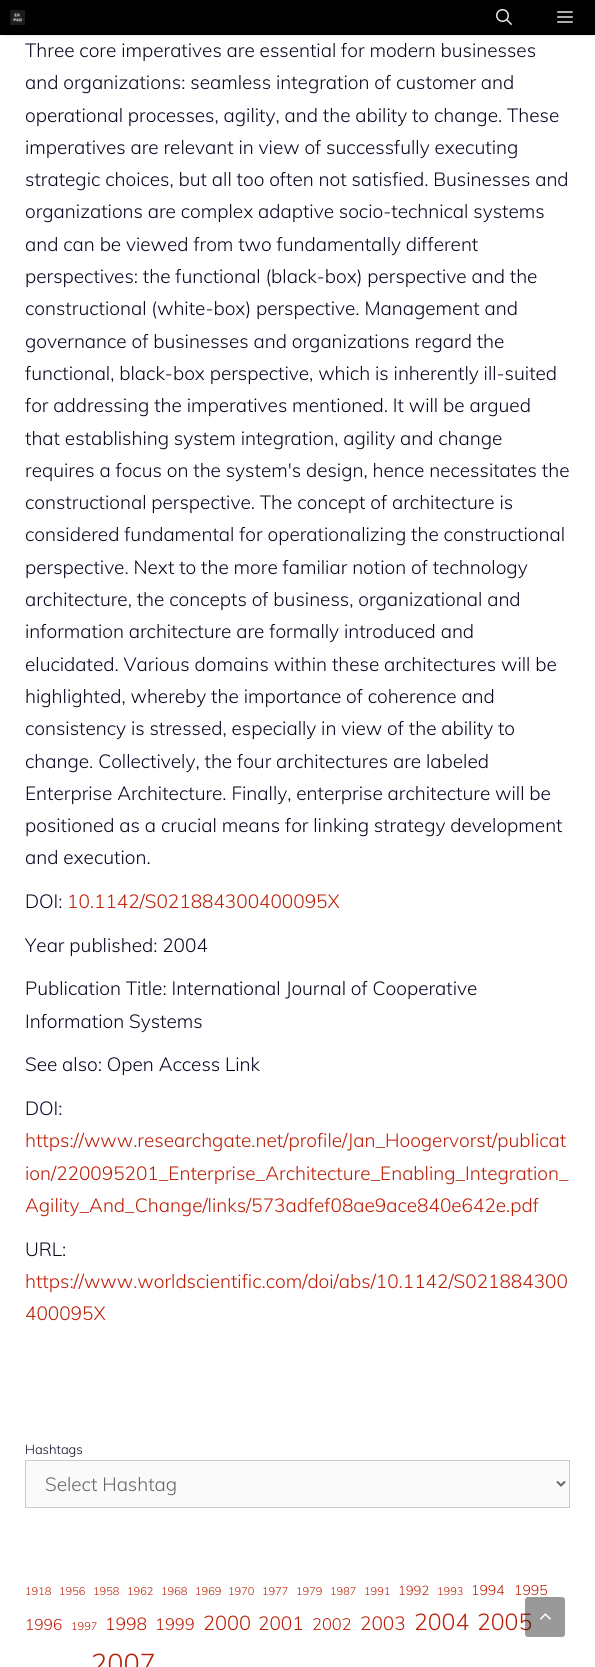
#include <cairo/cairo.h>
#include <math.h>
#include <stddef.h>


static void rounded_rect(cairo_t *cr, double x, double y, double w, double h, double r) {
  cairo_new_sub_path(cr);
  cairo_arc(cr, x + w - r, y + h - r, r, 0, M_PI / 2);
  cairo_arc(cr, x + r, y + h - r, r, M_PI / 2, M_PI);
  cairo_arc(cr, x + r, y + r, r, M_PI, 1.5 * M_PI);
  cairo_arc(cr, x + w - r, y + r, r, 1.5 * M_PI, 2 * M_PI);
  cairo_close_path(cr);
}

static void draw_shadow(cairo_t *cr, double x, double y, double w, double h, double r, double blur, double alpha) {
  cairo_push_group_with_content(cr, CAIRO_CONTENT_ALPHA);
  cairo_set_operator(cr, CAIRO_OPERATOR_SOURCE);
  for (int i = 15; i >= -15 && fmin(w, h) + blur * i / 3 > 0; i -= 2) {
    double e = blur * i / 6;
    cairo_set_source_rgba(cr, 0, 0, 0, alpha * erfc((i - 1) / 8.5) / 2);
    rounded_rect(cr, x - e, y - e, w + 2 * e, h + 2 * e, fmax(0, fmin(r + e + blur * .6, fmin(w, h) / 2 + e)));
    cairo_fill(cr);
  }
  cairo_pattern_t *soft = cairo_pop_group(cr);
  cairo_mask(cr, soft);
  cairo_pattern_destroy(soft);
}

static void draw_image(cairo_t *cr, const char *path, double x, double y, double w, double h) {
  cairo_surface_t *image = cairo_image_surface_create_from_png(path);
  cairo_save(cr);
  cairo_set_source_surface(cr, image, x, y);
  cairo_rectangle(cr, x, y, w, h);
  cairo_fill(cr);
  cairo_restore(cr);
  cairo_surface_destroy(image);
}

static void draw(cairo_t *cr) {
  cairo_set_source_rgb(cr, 1, 1, 1);
  cairo_paint(cr);
  cairo_set_source_rgb(cr, 0, 0, 0);
  draw_shadow(cr, 2, 4, 591, 31, 0, 1, 0.2);
  cairo_set_source_rgb(cr, 0, 0, 0);
  cairo_rectangle(cr, 0, 0, 595, 35);
  cairo_fill(cr);
  draw_image(cr, "images/1.png", 10, 10, 15, 15);
  draw_image(cr, "images/2.png", 496, 9, 16, 16);
  draw_image(cr, "images/3.png", 557, 11, 16, 12);
  cairo_set_source_rgb(cr, 250 / 255.0, 250 / 255.0, 250 / 255.0);
  cairo_rectangle(cr, 25.5, 1460.5, 544, 47);
  cairo_fill_preserve(cr);
  cairo_set_source_rgb(cr, 204 / 255.0, 204 / 255.0, 204 / 255.0);
  cairo_set_line_width(cr, 1);
  cairo_stroke(cr);
  cairo_new_path(cr);
  cairo_move_to(cr, 557, 1481.5);
  cairo_line_to(cr, 561, 1485.5);
  cairo_line_to(cr, 565, 1481.5);
  cairo_set_source_rgb(cr, 102 / 255.0, 102 / 255.0, 102 / 255.0);
  cairo_set_line_width(cr, 2);
  cairo_stroke(cr);
  cairo_select_font_face(cr, "Muli Light", CAIRO_FONT_SLANT_NORMAL, CAIRO_FONT_WEIGHT_NORMAL);
  cairo_set_font_size(cr, 19);
  cairo_set_source_rgb(cr, 11 / 255.0, 5 / 255.0, 33 / 255.0);
  cairo_move_to(cr, 25, 57);
  cairo_show_text(cr, "Three core imperatives are essential for modern businesses");
  cairo_move_to(cr, 25, 89);
  cairo_show_text(cr, "and organizations: seamless integration of customer and");
  cairo_move_to(cr, 25, 122);
  cairo_show_text(cr, "operational processes, agility, and the ability to change. These");
  cairo_move_to(cr, 25, 154);
  cairo_show_text(cr, "imperatives are relevant in view of successfully executing");
  cairo_move_to(cr, 25, 186);
  cairo_show_text(cr, "strategic choices, but all too often not satisfied. Businesses and");
  cairo_move_to(cr, 25, 218);
  cairo_show_text(cr, "organizations are complex adaptive socio-technical systems");
  cairo_move_to(cr, 25, 251);
  cairo_show_text(cr, "and can be viewed from two fundamentally different");
  cairo_move_to(cr, 25, 283);
  cairo_show_text(cr, "perspectives: the functional (black-box) perspective and the");
  cairo_move_to(cr, 25, 315);
  cairo_show_text(cr, "constructional (white-box) perspective. Management and");
  cairo_move_to(cr, 25, 348);
  cairo_show_text(cr, "governance of businesses and organizations regard the");
  cairo_move_to(cr, 25, 380);
  cairo_show_text(cr, "functional, black-box perspective, which is inherently ill-suited");
  cairo_move_to(cr, 25, 412);
  cairo_show_text(cr, "for addressing the imperatives mentioned. It will be argued");
  cairo_move_to(cr, 25, 445);
  cairo_show_text(cr, "that establishing system integration, agility and change");
  cairo_move_to(cr, 25, 477);
  cairo_show_text(cr, "requires a focus on the system's design, hence necessitates the");
  cairo_move_to(cr, 25, 509);
  cairo_show_text(cr, "constructional perspective. The concept of architecture is");
  cairo_move_to(cr, 25, 541);
  cairo_show_text(cr, "considered fundamental for operationalizing the constructional");
  cairo_move_to(cr, 25, 574);
  cairo_show_text(cr, "perspective. Next to the more familiar notion of technology");
  cairo_move_to(cr, 25, 606);
  cairo_show_text(cr, "architecture, the concepts of business, organizational and");
  cairo_move_to(cr, 25, 638);
  cairo_show_text(cr, "information architecture are formally introduced and");
  cairo_move_to(cr, 25, 671);
  cairo_show_text(cr, "elucidated. Various domains within these architectures will be");
  cairo_move_to(cr, 25, 703);
  cairo_show_text(cr, "highlighted, whereby the importance of coherence and");
  cairo_move_to(cr, 25, 735);
  cairo_show_text(cr, "consistency is stressed, especially in view of the ability to");
  cairo_move_to(cr, 25, 768);
  cairo_show_text(cr, "change. Collectively, the four architectures are labeled");
  cairo_move_to(cr, 25, 800);
  cairo_show_text(cr, "Enterprise Architecture. Finally, enterprise architecture will be");
  cairo_move_to(cr, 25, 832);
  cairo_show_text(cr, "positioned as a crucial means for linking strategy development");
  cairo_move_to(cr, 25, 864);
  cairo_show_text(cr, "and execution.");
  cairo_move_to(cr, 25, 908);
  cairo_show_text(cr, "DOI:");
  cairo_set_source_rgb(cr, 188 / 255.0, 30 / 255.0, 5 / 255.0);
  cairo_move_to(cr, 67, 908);
  cairo_show_text(cr, "10.1142/S021884300400095X");
  cairo_set_source_rgb(cr, 11 / 255.0, 5 / 255.0, 33 / 255.0);
  cairo_move_to(cr, 25, 952);
  cairo_show_text(cr, "Year published: 2004");
  cairo_move_to(cr, 25, 995);
  cairo_show_text(cr, "Publication Title: International Journal of Cooperative");
  cairo_move_to(cr, 25, 1028);
  cairo_show_text(cr, "Information Systems");
  cairo_move_to(cr, 25, 1071);
  cairo_show_text(cr, "See also: Open Access Link");
  cairo_move_to(cr, 25, 1115);
  cairo_show_text(cr, "DOI:");
  cairo_set_source_rgb(cr, 188 / 255.0, 30 / 255.0, 5 / 255.0);
  cairo_move_to(cr, 25, 1147);
  cairo_show_text(cr, "https://www.researchgate.net/profile/Jan_Hoogervorst/publicat");
  cairo_move_to(cr, 25, 1180);
  cairo_show_text(cr, "ion/220095201_Enterprise_Architecture_Enabling_Integration_");
  cairo_move_to(cr, 25, 1212);
  cairo_show_text(cr, "Agility_And_Change/links/573adfef08ae9ace840e642e.pdf");
  cairo_set_source_rgb(cr, 11 / 255.0, 5 / 255.0, 33 / 255.0);
  cairo_move_to(cr, 25, 1256);
  cairo_show_text(cr, "URL:");
  cairo_set_source_rgb(cr, 188 / 255.0, 30 / 255.0, 5 / 255.0);
  cairo_move_to(cr, 25, 1288);
  cairo_show_text(cr, "https://www.worldscientific.com/doi/abs/10.1142/S021884300");
  cairo_move_to(cr, 25, 1320);
  cairo_show_text(cr, "400095X");
  cairo_set_font_size(cr, 13);
  cairo_set_source_rgb(cr, 11 / 255.0, 5 / 255.0, 33 / 255.0);
  cairo_move_to(cr, 25, 1454);
  cairo_show_text(cr, "Hashtags");
  cairo_set_font_size(cr, 19);
  cairo_set_source_rgb(cr, 102 / 255.0, 102 / 255.0, 102 / 255.0);
  cairo_move_to(cr, 45, 1491);
  cairo_show_text(cr, "Select Hashtag");
  cairo_set_font_size(cr, 11);
  cairo_set_source_rgb(cr, 188 / 255.0, 30 / 255.0, 5 / 255.0);
  cairo_move_to(cr, 25, 1595);
  cairo_show_text(cr, "1918");
  cairo_move_to(cr, 59, 1595);
  cairo_show_text(cr, "1956");
  cairo_move_to(cr, 93, 1595);
  cairo_show_text(cr, "1958");
  cairo_move_to(cr, 127, 1595);
  cairo_show_text(cr, "1962");
  cairo_move_to(cr, 161, 1595);
  cairo_show_text(cr, "1968");
  cairo_move_to(cr, 195, 1595);
  cairo_show_text(cr, "1969");
  cairo_move_to(cr, 228, 1595);
  cairo_show_text(cr, "1970");
  cairo_move_to(cr, 262, 1595);
  cairo_show_text(cr, "1977");
  cairo_move_to(cr, 296, 1595);
  cairo_show_text(cr, "1979");
  cairo_move_to(cr, 330, 1595);
  cairo_show_text(cr, "1987");
  cairo_move_to(cr, 364, 1595);
  cairo_show_text(cr, "1991");
  cairo_set_font_size(cr, 13);
  cairo_move_to(cr, 398, 1595);
  cairo_show_text(cr, "1992");
  cairo_set_font_size(cr, 11);
  cairo_move_to(cr, 437, 1595);
  cairo_show_text(cr, "1993");
  cairo_set_font_size(cr, 14);
  cairo_move_to(cr, 471, 1595);
  cairo_show_text(cr, "1994");
  cairo_move_to(cr, 514, 1595);
  cairo_show_text(cr, "1995");
  cairo_set_font_size(cr, 15.5);
  cairo_move_to(cr, 25, 1630);
  cairo_show_text(cr, "1996");
  cairo_set_font_size(cr, 11);
  cairo_move_to(cr, 71, 1630);
  cairo_show_text(cr, "1997");
  cairo_set_font_size(cr, 17.5);
  cairo_move_to(cr, 105, 1630);
  cairo_show_text(cr, "1998");
  cairo_set_font_size(cr, 16.5);
  cairo_move_to(cr, 155, 1630);
  cairo_show_text(cr, "1999");
  cairo_set_font_size(cr, 20);
  cairo_move_to(cr, 203, 1630);
  cairo_show_text(cr, "2000");
  cairo_set_font_size(cr, 19);
  cairo_move_to(cr, 258, 1630);
  cairo_show_text(cr, "2001");
  cairo_set_font_size(cr, 16.5);
  cairo_move_to(cr, 312, 1630);
  cairo_show_text(cr, "2002");
  cairo_set_font_size(cr, 19);
  cairo_move_to(cr, 360, 1630);
  cairo_show_text(cr, "2003");
  cairo_set_font_size(cr, 23);
  cairo_move_to(cr, 414, 1630);
  cairo_show_text(cr, "2004");
  cairo_move_to(cr, 477, 1630);
  cairo_show_text(cr, "2005");
  cairo_set_font_size(cr, 27);
  cairo_move_to(cr, 91, 1673);
  cairo_show_text(cr, "2007");
  cairo_set_source_rgba(cr, 0, 0, 0, 0.4);
  rounded_rect(cr, 525, 1597, 40, 40, 3);
  cairo_fill(cr);
  draw_image(cr, "images/4.png", 540, 1613, 11, 7);
}

int main(void) {
  cairo_surface_t *surface = cairo_image_surface_create(CAIRO_FORMAT_RGB24, 595, 1667);
  cairo_t *cr = cairo_create(surface);
  cairo_font_options_t *options = cairo_font_options_create();
  cairo_font_options_set_hint_metrics(options, CAIRO_HINT_METRICS_OFF);
  cairo_font_options_set_hint_style(options, CAIRO_HINT_STYLE_NONE);
  cairo_set_font_options(cr, options);
  cairo_set_miter_limit(cr, 4);
  draw(cr);
  cairo_surface_write_to_png(surface, "out.png");
  cairo_font_options_destroy(options);
  cairo_destroy(cr);
  cairo_surface_destroy(surface);
  return 0;
}
